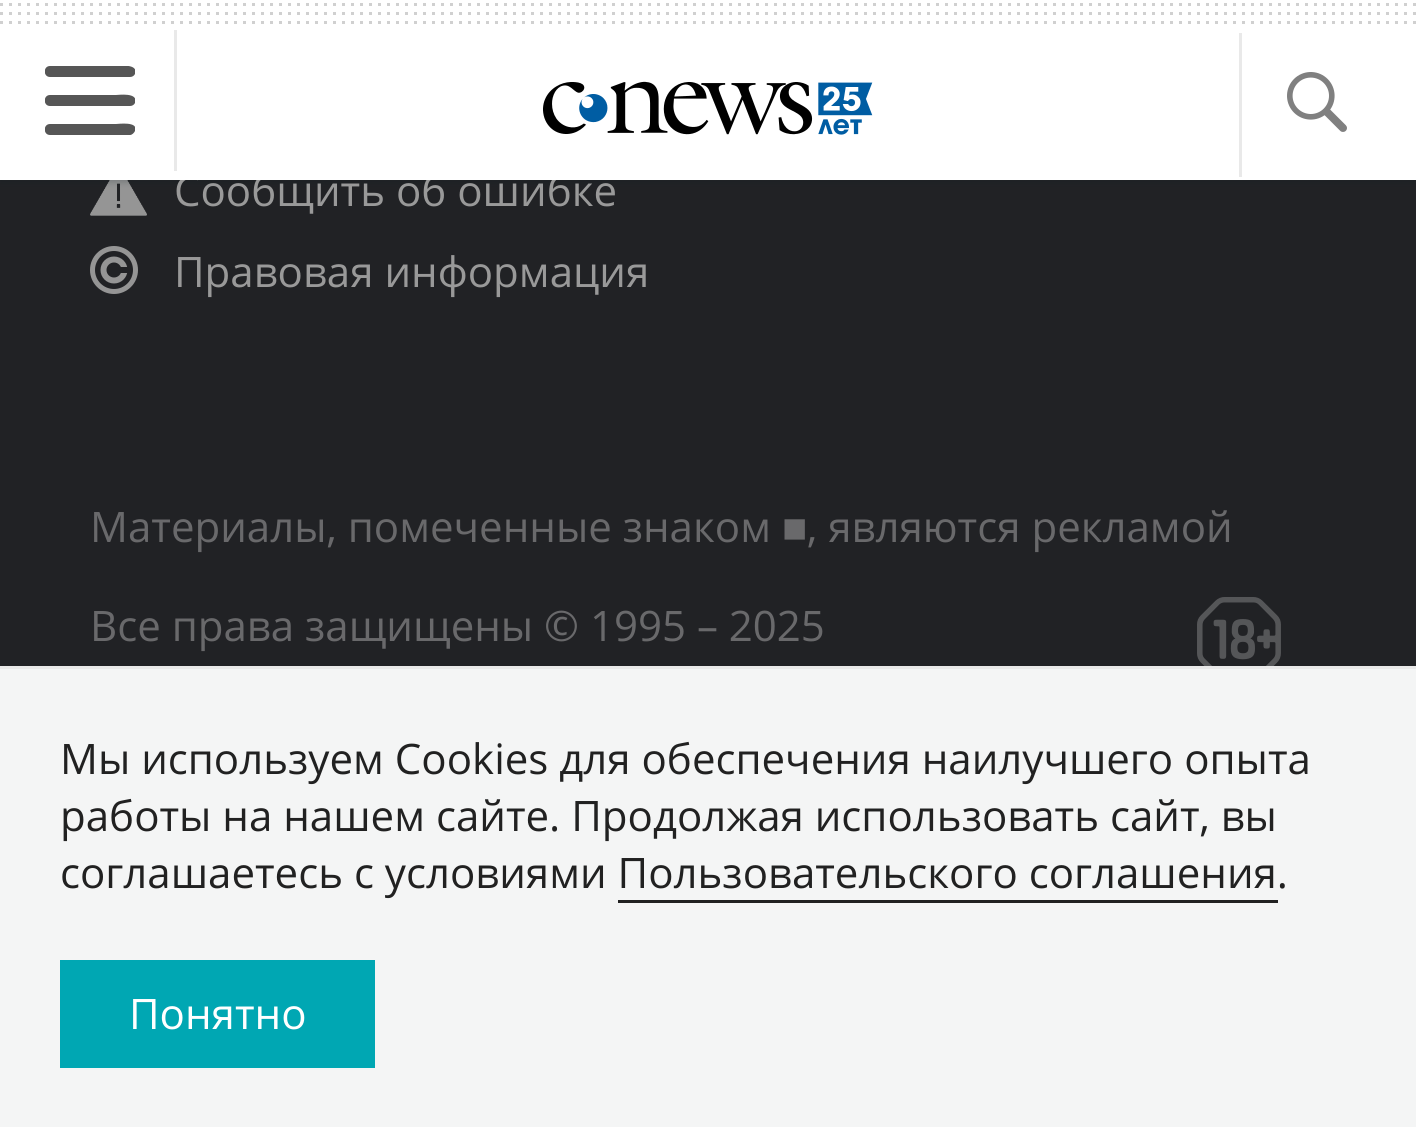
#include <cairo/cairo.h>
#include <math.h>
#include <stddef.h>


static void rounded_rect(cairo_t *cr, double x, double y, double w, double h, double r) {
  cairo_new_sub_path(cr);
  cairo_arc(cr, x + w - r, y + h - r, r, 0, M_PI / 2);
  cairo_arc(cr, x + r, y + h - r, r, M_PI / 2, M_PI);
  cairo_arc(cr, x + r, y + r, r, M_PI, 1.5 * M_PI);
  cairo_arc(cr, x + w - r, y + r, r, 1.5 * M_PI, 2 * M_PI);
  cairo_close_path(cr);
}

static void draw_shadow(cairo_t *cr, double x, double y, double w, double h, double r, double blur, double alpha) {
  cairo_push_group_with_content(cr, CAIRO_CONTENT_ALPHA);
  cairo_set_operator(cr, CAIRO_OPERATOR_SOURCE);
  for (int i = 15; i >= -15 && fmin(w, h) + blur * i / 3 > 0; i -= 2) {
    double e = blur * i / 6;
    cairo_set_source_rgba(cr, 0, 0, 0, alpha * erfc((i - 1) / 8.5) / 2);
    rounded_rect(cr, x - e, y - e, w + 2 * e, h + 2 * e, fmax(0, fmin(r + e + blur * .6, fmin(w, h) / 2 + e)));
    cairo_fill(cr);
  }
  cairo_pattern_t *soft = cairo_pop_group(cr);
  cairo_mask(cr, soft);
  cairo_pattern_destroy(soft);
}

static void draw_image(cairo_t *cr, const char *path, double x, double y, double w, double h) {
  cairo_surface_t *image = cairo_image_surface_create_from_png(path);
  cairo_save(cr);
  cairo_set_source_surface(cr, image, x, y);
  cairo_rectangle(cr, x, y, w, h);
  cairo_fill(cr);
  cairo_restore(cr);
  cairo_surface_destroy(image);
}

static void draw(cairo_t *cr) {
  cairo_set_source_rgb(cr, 33 / 255.0, 34 / 255.0, 37 / 255.0);
  cairo_paint(cr);
  draw_image(cr, "images/4.png", 90, 180, 57, 36);
  cairo_set_source_rgb(cr, 16 / 255.0, 32 / 255.0, 39 / 255.0);
  draw_shadow(cr, 0, 3, 1416, 180, 0, 3, 0.2);
  cairo_set_source_rgb(cr, 149 / 255.0, 149 / 255.0, 149 / 255.0);
  cairo_arc(cr, 114, 270, 24, 0, 2 * M_PI);
  cairo_fill(cr);
  cairo_set_source_rgb(cr, 33 / 255.0, 34 / 255.0, 37 / 255.0);
  cairo_arc(cr, 114, 270, 19, 0, 2 * M_PI);
  cairo_fill(cr);
  cairo_set_source_rgb(cr, 149 / 255.0, 149 / 255.0, 149 / 255.0);
  cairo_arc(cr, 114, 270, 13.5, 0, 2 * M_PI);
  cairo_fill(cr);
  cairo_set_source_rgb(cr, 33 / 255.0, 34 / 255.0, 37 / 255.0);
  cairo_arc(cr, 114, 270, 7.5, 0, 2 * M_PI);
  cairo_fill(cr);
  cairo_rectangle(cr, 118, 267, 11, 6);
  cairo_fill(cr);
  draw_image(cr, "images/5.png", 1197, 597, 84, 69);
  cairo_set_source_rgb(cr, 244 / 255.0, 245 / 255.0, 245 / 255.0);
  cairo_rectangle(cr, 0, 669, 1416, 458);
  cairo_fill(cr);
  cairo_set_source_rgb(cr, 233 / 255.0, 233 / 255.0, 233 / 255.0);
  cairo_rectangle(cr, 0, 666, 1416, 3);
  cairo_fill(cr);
  cairo_set_source_rgb(cr, 33 / 255.0, 33 / 255.0, 33 / 255.0);
  cairo_rectangle(cr, 618, 900, 660, 3);
  cairo_fill(cr);
  cairo_set_source_rgb(cr, 0, 167 / 255.0, 179 / 255.0);
  cairo_rectangle(cr, 60, 960, 315, 108);
  cairo_fill(cr);
  cairo_select_font_face(cr, "Open Sans", CAIRO_FONT_SLANT_NORMAL, CAIRO_FONT_WEIGHT_NORMAL);
  cairo_set_font_size(cr, 42);
  cairo_set_source_rgb(cr, 153 / 255.0, 153 / 255.0, 153 / 255.0);
  cairo_move_to(cr, 174, 206);
  cairo_show_text(cr, "Сообщить об ошибке");
  cairo_set_source_rgb(cr, 1, 1, 1);
  cairo_rectangle(cr, 0, 0, 1416, 180);
  cairo_fill(cr);
  draw_image(cr, "images/2.png", 543, 81, 330, 54);
  cairo_save(cr);
  cairo_rectangle(cr, 45, 66, 90, 69);
  cairo_clip(cr);
  cairo_set_source_rgb(cr, 86 / 255.0, 86 / 255.0, 86 / 255.0);
  cairo_new_path(cr);
  cairo_move_to(cr, 50, 135);
  cairo_curve_to(cr, 43, 135, 43, 124, 50, 124);
  cairo_line_to(cr, 116, 124);
  cairo_curve_to(cr, 118, 124, 139, 121, 135, 131);
  cairo_curve_to(cr, 134, 133, 132, 135, 130, 135);
  cairo_close_path(cr);
  cairo_move_to(cr, 50, 106);
  cairo_curve_to(cr, 43, 106, 43, 95, 50, 95);
  cairo_line_to(cr, 116, 95);
  cairo_curve_to(cr, 118, 95, 139, 92, 135, 103);
  cairo_curve_to(cr, 134, 105, 132, 106, 130, 106);
  cairo_close_path(cr);
  cairo_move_to(cr, 50, 77);
  cairo_curve_to(cr, 43, 77, 43, 66, 50, 66);
  cairo_line_to(cr, 116, 66);
  cairo_curve_to(cr, 118, 66, 139, 63, 135, 74);
  cairo_curve_to(cr, 134, 76, 132, 77, 130, 77);
  cairo_close_path(cr);
  cairo_fill(cr);
  cairo_restore(cr);
  cairo_set_source_rgb(cr, 233 / 255.0, 233 / 255.0, 233 / 255.0);
  cairo_rectangle(cr, 174, 30, 3, 141);
  cairo_fill(cr);
  draw_image(cr, "images/3.png", 1287, 72, 60, 60);
  cairo_rectangle(cr, 1239, 33, 3, 144);
  cairo_fill(cr);
  draw_image(cr, "images/1.png", 0, 3, 1416, 21);
  cairo_set_source_rgb(cr, 153 / 255.0, 153 / 255.0, 153 / 255.0);
  cairo_move_to(cr, 174, 287);
  cairo_show_text(cr, "Правовая информация");
  cairo_set_source_rgb(cr, 105 / 255.0, 105 / 255.0, 107 / 255.0);
  cairo_move_to(cr, 90, 542);
  cairo_show_text(cr, "Материалы, помеченные знаком");
  cairo_select_font_face(cr, "Liberation Sans", CAIRO_FONT_SLANT_NORMAL, CAIRO_FONT_WEIGHT_NORMAL);
  cairo_move_to(cr, 782, 542);
  cairo_show_text(cr, "■");
  cairo_select_font_face(cr, "Open Sans", CAIRO_FONT_SLANT_NORMAL, CAIRO_FONT_WEIGHT_NORMAL);
  cairo_move_to(cr, 807, 542);
  cairo_show_text(cr, ", являются рекламой");
  cairo_move_to(cr, 90, 641);
  cairo_show_text(cr, "Все права защищены © 1995 – 2025");
  cairo_set_source_rgb(cr, 33 / 255.0, 33 / 255.0, 33 / 255.0);
  cairo_move_to(cr, 60, 774);
  cairo_show_text(cr, "Мы используем Сookies для обеспечения наилучшего опыта");
  cairo_move_to(cr, 60, 831);
  cairo_show_text(cr, "работы на нашем сайте. Продолжая использовать сайт, вы");
  cairo_move_to(cr, 60, 888);
  cairo_show_text(cr, "соглашаетесь с условиями Пользовательского соглашения.");
  cairo_set_source_rgb(cr, 1, 1, 1);
  cairo_move_to(cr, 129, 1029);
  cairo_show_text(cr, "Понятно");
}

int main(void) {
  cairo_surface_t *surface = cairo_image_surface_create(CAIRO_FORMAT_RGB24, 1416, 1127);
  cairo_t *cr = cairo_create(surface);
  cairo_font_options_t *options = cairo_font_options_create();
  cairo_font_options_set_hint_metrics(options, CAIRO_HINT_METRICS_OFF);
  cairo_font_options_set_hint_style(options, CAIRO_HINT_STYLE_NONE);
  cairo_set_font_options(cr, options);
  cairo_set_miter_limit(cr, 4);
  draw(cr);
  cairo_surface_write_to_png(surface, "out.png");
  cairo_font_options_destroy(options);
  cairo_destroy(cr);
  cairo_surface_destroy(surface);
  return 0;
}
